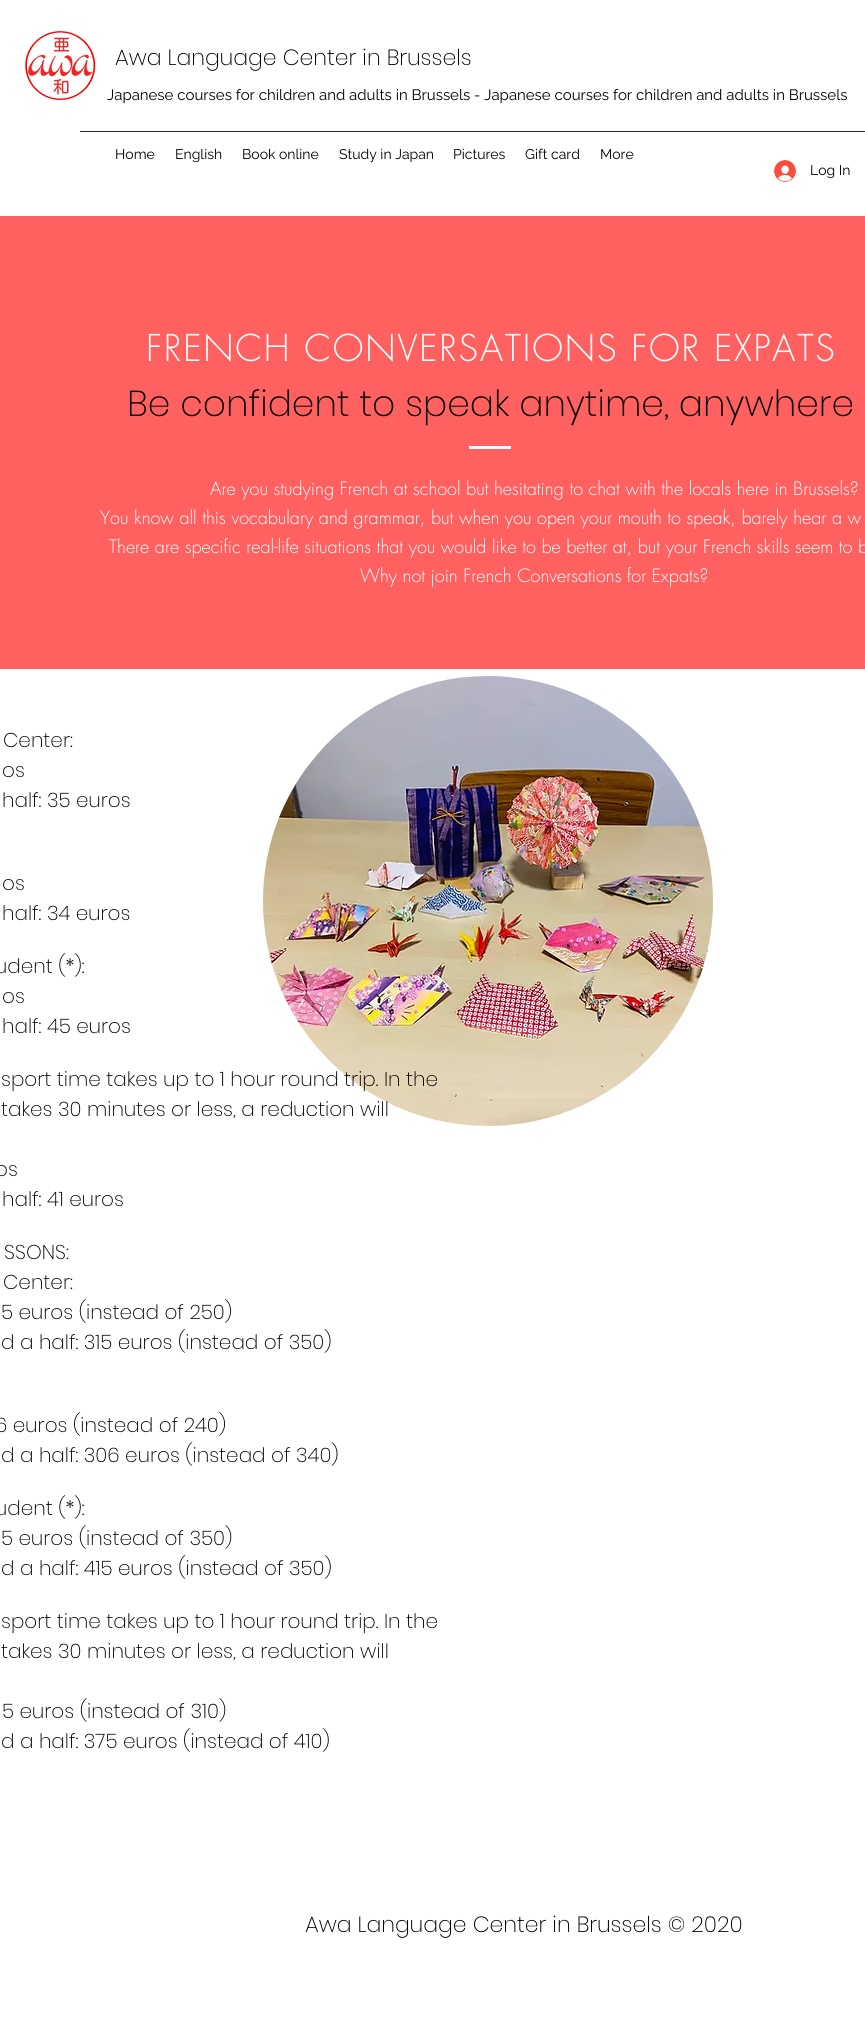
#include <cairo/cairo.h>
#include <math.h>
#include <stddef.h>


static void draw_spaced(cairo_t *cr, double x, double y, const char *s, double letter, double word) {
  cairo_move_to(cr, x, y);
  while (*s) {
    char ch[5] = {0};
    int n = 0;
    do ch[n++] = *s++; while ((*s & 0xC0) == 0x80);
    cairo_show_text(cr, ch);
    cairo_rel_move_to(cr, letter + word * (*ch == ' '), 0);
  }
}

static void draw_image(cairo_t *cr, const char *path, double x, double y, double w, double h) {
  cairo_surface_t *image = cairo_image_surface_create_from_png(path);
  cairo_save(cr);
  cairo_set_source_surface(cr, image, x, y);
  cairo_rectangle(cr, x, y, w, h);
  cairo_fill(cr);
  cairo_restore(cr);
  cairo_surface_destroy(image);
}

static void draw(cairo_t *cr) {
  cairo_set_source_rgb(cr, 1, 1, 1);
  cairo_paint(cr);
  draw_image(cr, "images/1.png", 25, 31, 71, 69);
  cairo_set_source_rgb(cr, 38 / 255.0, 38 / 255.0, 38 / 255.0);
  cairo_rectangle(cr, 80, 131, 785, 1);
  cairo_fill(cr);
  draw_image(cr, "images/2.png", 774, 160, 22, 22);
  cairo_set_source_rgb(cr, 1, 97 / 255.0, 97 / 255.0);
  cairo_rectangle(cr, 0, 216, 865, 453);
  cairo_fill(cr);
  cairo_set_source_rgb(cr, 1, 1, 1);
  cairo_rectangle(cr, 469, 446, 42, 3);
  cairo_fill(cr);
  draw_image(cr, "images/3.png", 263, 676, 450, 450);
  cairo_select_font_face(cr, "Poppins ExtraLight", CAIRO_FONT_SLANT_NORMAL, CAIRO_FONT_WEIGHT_NORMAL);
  cairo_set_font_size(cr, 22);
  cairo_set_source_rgb(cr, 0, 0, 0);
  cairo_move_to(cr, 115, 65);
  cairo_show_text(cr, "Awa Language Center in Brussels");
  cairo_select_font_face(cr, "Raleway", CAIRO_FONT_SLANT_NORMAL, CAIRO_FONT_WEIGHT_NORMAL);
  cairo_set_font_size(cr, 15);
  cairo_move_to(cr, 107, 100);
  cairo_show_text(cr, "Japanese courses for children and adults in Brussels - Japanese courses for children and adults in Brussels");
  cairo_set_font_size(cr, 14);
  cairo_move_to(cr, 115, 159);
  cairo_show_text(cr, "Home");
  cairo_move_to(cr, 175, 159);
  cairo_show_text(cr, "English");
  cairo_move_to(cr, 242, 159);
  cairo_show_text(cr, "Book online");
  cairo_move_to(cr, 339, 159);
  cairo_show_text(cr, "Study in Japan");
  cairo_move_to(cr, 453, 159);
  cairo_show_text(cr, "Pictures");
  cairo_move_to(cr, 525, 159);
  cairo_show_text(cr, "Gift card");
  cairo_move_to(cr, 600, 159);
  cairo_show_text(cr, "More");
  cairo_move_to(cr, 810, 175);
  cairo_show_text(cr, "Log In");
  cairo_select_font_face(cr, "futura Light", CAIRO_FONT_SLANT_NORMAL, CAIRO_FONT_WEIGHT_NORMAL);
  cairo_set_font_size(cr, 36);
  cairo_set_source_rgb(cr, 1, 1, 1);
  draw_spaced(cr, 146, 361, "FRENCH CONVERSATIONS FOR EXPATS", 1.8, 0);
  cairo_select_font_face(cr, "Poppins ExtraLight", CAIRO_FONT_SLANT_NORMAL, CAIRO_FONT_WEIGHT_NORMAL);
  cairo_set_source_rgb(cr, 0, 0, 0);
  cairo_move_to(cr, 127, 416);
  cairo_show_text(cr, "Be confident to speak anytime, anywhere");
  cairo_select_font_face(cr, "futura Light", CAIRO_FONT_SLANT_NORMAL, CAIRO_FONT_WEIGHT_NORMAL);
  cairo_set_font_size(cr, 18);
  cairo_set_source_rgb(cr, 1, 1, 1);
  cairo_move_to(cr, 210, 495);
  cairo_show_text(cr, "Are you studying French at school but hesitating to chat with the locals here in Brussels?");
  cairo_move_to(cr, 100, 524);
  cairo_show_text(cr, "You know all this vocabulary and grammar, but when you open your mouth to speak, barely hear a w");
  cairo_move_to(cr, 109, 553);
  cairo_show_text(cr, "There are specific real-life situations that you would like to be better at, but your French skills seem to b");
  cairo_move_to(cr, 360, 582);
  cairo_show_text(cr, "Why not join French Conversations for Expats?");
  cairo_select_font_face(cr, "Poppins ExtraLight", CAIRO_FONT_SLANT_NORMAL, CAIRO_FONT_WEIGHT_NORMAL);
  cairo_set_font_size(cr, 20);
  cairo_set_source_rgb(cr, 0, 0, 0);
  cairo_move_to(cr, 3, 747);
  cairo_show_text(cr, "Center:");
  cairo_move_to(cr, 2, 777);
  cairo_show_text(cr, "os");
  cairo_move_to(cr, 2, 807);
  cairo_show_text(cr, "half: 35 euros");
  cairo_move_to(cr, 2, 890);
  cairo_show_text(cr, "os");
  cairo_move_to(cr, 2, 920);
  cairo_show_text(cr, "half: 34 euros");
  cairo_move_to(cr, -5, 973);
  cairo_show_text(cr, "udent (*):");
  cairo_move_to(cr, 2, 1003);
  cairo_show_text(cr, "os");
  cairo_move_to(cr, 2, 1033);
  cairo_show_text(cr, "half: 45 euros");
  cairo_move_to(cr, 1, 1086);
  cairo_show_text(cr, "sport time takes up to 1 hour round trip. In the");
  cairo_move_to(cr, 1, 1116);
  cairo_show_text(cr, "takes 30 minutes or less, a reduction will");
  cairo_move_to(cr, -5, 1176);
  cairo_show_text(cr, "os");
  cairo_move_to(cr, 2, 1206);
  cairo_show_text(cr, "half: 41 euros");
  cairo_move_to(cr, 4, 1259);
  cairo_show_text(cr, "SSONS:");
  cairo_move_to(cr, 3, 1289);
  cairo_show_text(cr, "Center:");
  cairo_move_to(cr, 1, 1319);
  cairo_show_text(cr, "5 euros (instead of 250)");
  cairo_move_to(cr, 1, 1349);
  cairo_show_text(cr, "d a half: 315 euros (instead of 350)");
  cairo_move_to(cr, -5, 1432);
  cairo_show_text(cr, "6 euros (instead of 240)");
  cairo_move_to(cr, 1, 1462);
  cairo_show_text(cr, "d a half: 306 euros (instead of 340)");
  cairo_move_to(cr, -5, 1515);
  cairo_show_text(cr, "udent (*):");
  cairo_move_to(cr, 1, 1545);
  cairo_show_text(cr, "5 euros (instead of 350)");
  cairo_move_to(cr, 1, 1575);
  cairo_show_text(cr, "d a half: 415 euros (instead of 350)");
  cairo_move_to(cr, 1, 1628);
  cairo_show_text(cr, "sport time takes up to 1 hour round trip. In the");
  cairo_move_to(cr, 1, 1658);
  cairo_show_text(cr, "takes 30 minutes or less, a reduction will");
  cairo_move_to(cr, 2, 1718);
  cairo_show_text(cr, "5 euros (instead of 310)");
  cairo_move_to(cr, 1, 1748);
  cairo_show_text(cr, "d a half: 375 euros (instead of 410)");
  cairo_set_font_size(cr, 22);
  cairo_move_to(cr, 305, 1932);
  cairo_show_text(cr, "Awa Language Center in Brussels © 2020");
}

int main(void) {
  cairo_surface_t *surface = cairo_image_surface_create(CAIRO_FORMAT_RGB24, 865, 2036);
  cairo_t *cr = cairo_create(surface);
  cairo_font_options_t *options = cairo_font_options_create();
  cairo_font_options_set_hint_metrics(options, CAIRO_HINT_METRICS_OFF);
  cairo_font_options_set_hint_style(options, CAIRO_HINT_STYLE_NONE);
  cairo_set_font_options(cr, options);
  cairo_set_miter_limit(cr, 4);
  draw(cr);
  cairo_surface_write_to_png(surface, "out.png");
  cairo_font_options_destroy(options);
  cairo_destroy(cr);
  cairo_surface_destroy(surface);
  return 0;
}
